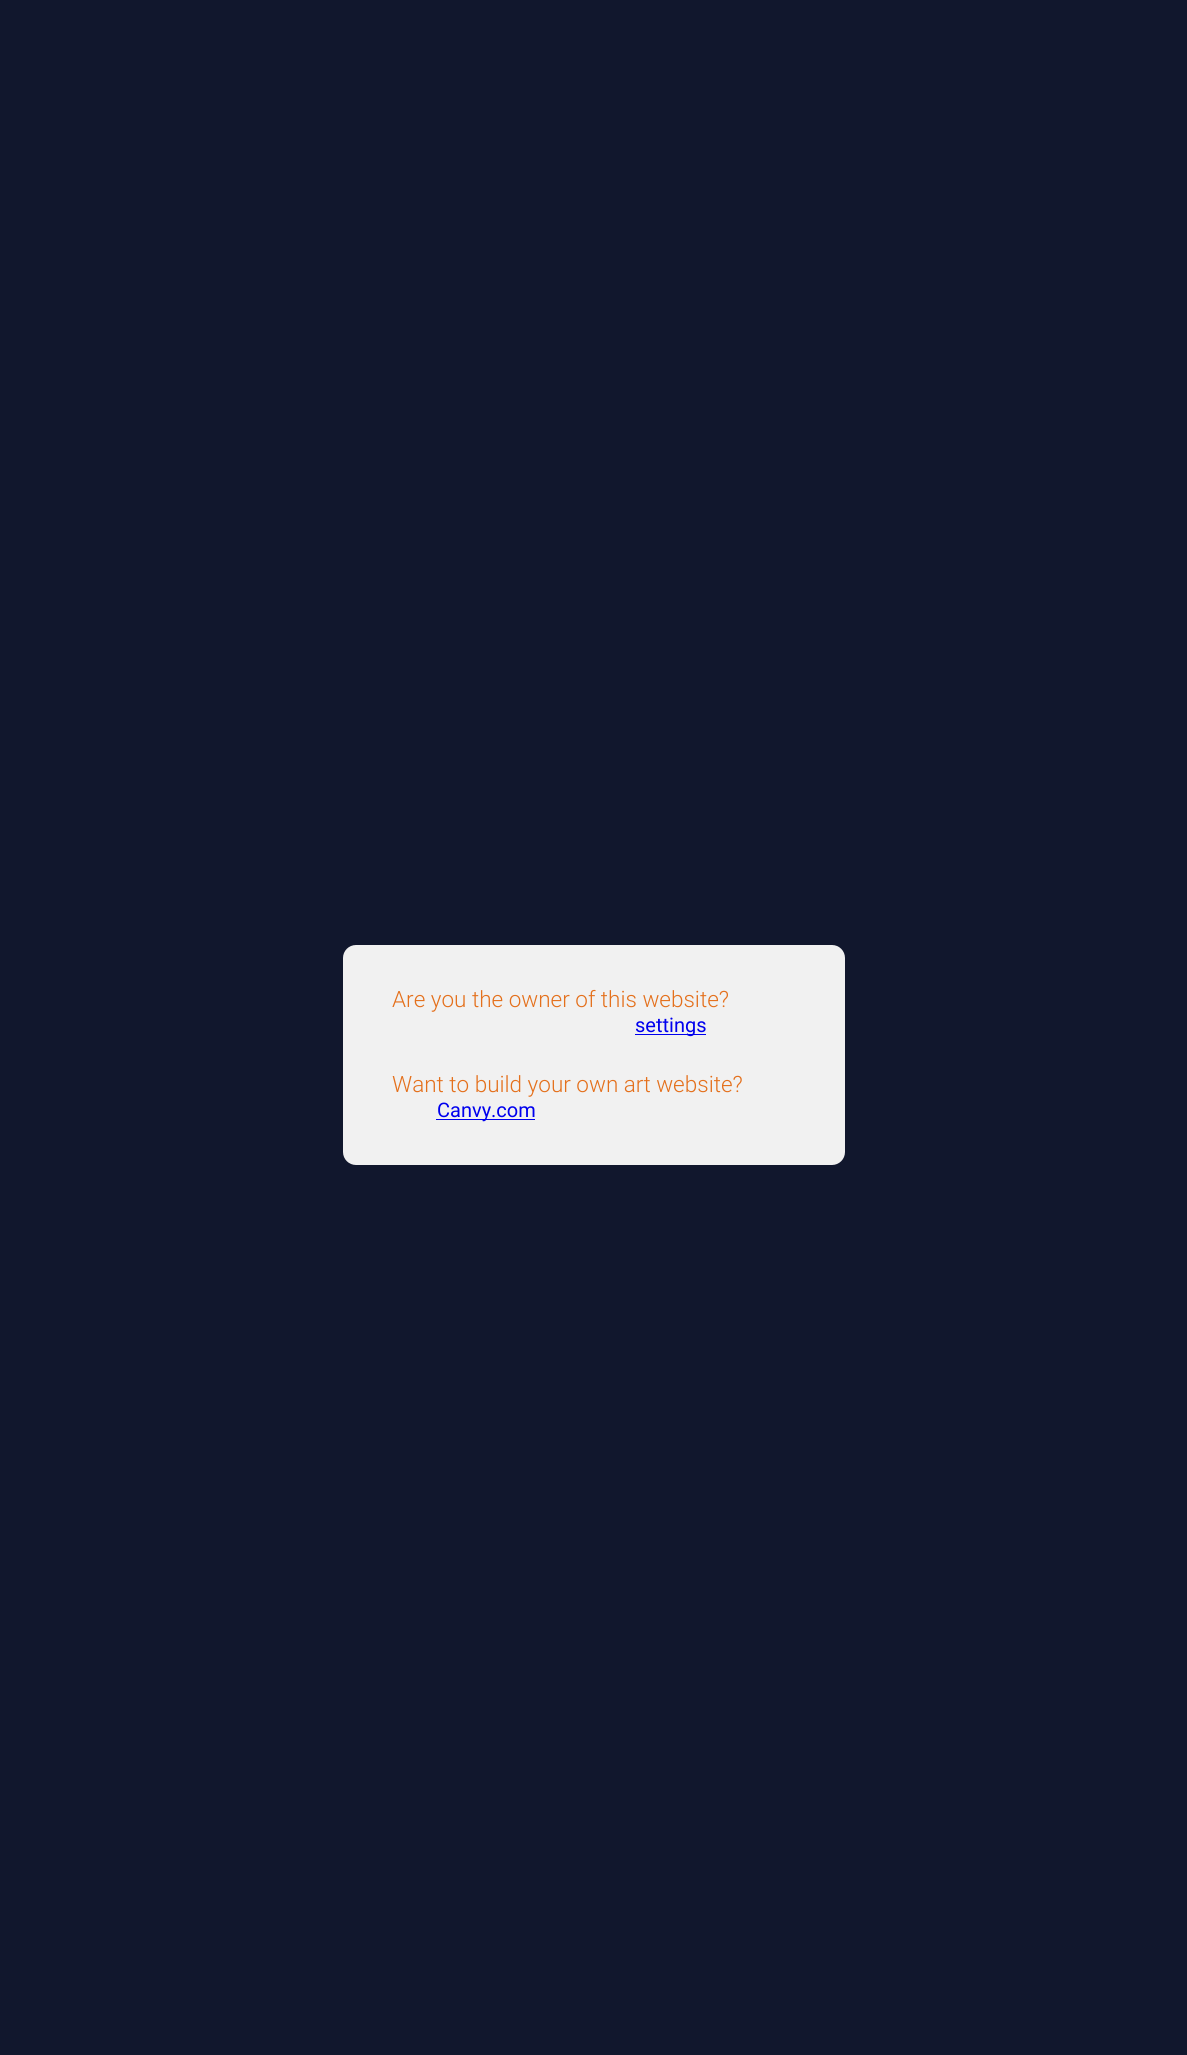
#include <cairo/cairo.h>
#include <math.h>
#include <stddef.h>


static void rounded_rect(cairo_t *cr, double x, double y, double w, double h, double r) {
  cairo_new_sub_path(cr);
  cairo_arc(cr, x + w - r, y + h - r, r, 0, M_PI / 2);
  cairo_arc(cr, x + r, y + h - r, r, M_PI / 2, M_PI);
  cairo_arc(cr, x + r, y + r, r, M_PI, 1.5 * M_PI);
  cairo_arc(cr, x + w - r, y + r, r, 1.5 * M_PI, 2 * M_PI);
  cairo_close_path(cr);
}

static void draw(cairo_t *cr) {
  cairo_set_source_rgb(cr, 17 / 255.0, 23 / 255.0, 45 / 255.0);
  cairo_paint(cr);
  cairo_set_source_rgb(cr, 241 / 255.0, 241 / 255.0, 241 / 255.0);
  rounded_rect(cr, 343, 945, 502, 220, 13);
  cairo_fill(cr);
  cairo_set_source_rgb(cr, 0, 0, 238 / 255.0);
  cairo_rectangle(cr, 635, 1034, 71, 1);
  cairo_fill(cr);
  cairo_rectangle(cr, 436, 1119, 99, 1);
  cairo_fill(cr);
  cairo_select_font_face(cr, "Roboto Light", CAIRO_FONT_SLANT_NORMAL, CAIRO_FONT_WEIGHT_NORMAL);
  cairo_set_font_size(cr, 22.5);
  cairo_set_source_rgb(cr, 228 / 255.0, 112 / 255.0, 28 / 255.0);
  cairo_move_to(cr, 392, 1007);
  cairo_show_text(cr, "Are you the owner of this website?");
  cairo_select_font_face(cr, "Roboto", CAIRO_FONT_SLANT_NORMAL, CAIRO_FONT_WEIGHT_NORMAL);
  cairo_set_font_size(cr, 20);
  cairo_set_source_rgb(cr, 0, 0, 238 / 255.0);
  cairo_move_to(cr, 635, 1032);
  cairo_show_text(cr, "settings");
  cairo_select_font_face(cr, "Roboto Light", CAIRO_FONT_SLANT_NORMAL, CAIRO_FONT_WEIGHT_NORMAL);
  cairo_set_font_size(cr, 22.5);
  cairo_set_source_rgb(cr, 228 / 255.0, 112 / 255.0, 28 / 255.0);
  cairo_move_to(cr, 392, 1092);
  cairo_show_text(cr, "Want to build your own art website?");
  cairo_select_font_face(cr, "Roboto", CAIRO_FONT_SLANT_NORMAL, CAIRO_FONT_WEIGHT_NORMAL);
  cairo_set_font_size(cr, 20);
  cairo_set_source_rgb(cr, 0, 0, 238 / 255.0);
  cairo_move_to(cr, 437, 1117);
  cairo_show_text(cr, "Canvy.com");
}

int main(void) {
  cairo_surface_t *surface = cairo_image_surface_create(CAIRO_FORMAT_RGB24, 1187, 2055);
  cairo_t *cr = cairo_create(surface);
  cairo_font_options_t *options = cairo_font_options_create();
  cairo_font_options_set_hint_metrics(options, CAIRO_HINT_METRICS_OFF);
  cairo_font_options_set_hint_style(options, CAIRO_HINT_STYLE_NONE);
  cairo_set_font_options(cr, options);
  cairo_set_miter_limit(cr, 4);
  draw(cr);
  cairo_surface_write_to_png(surface, "out.png");
  cairo_font_options_destroy(options);
  cairo_destroy(cr);
  cairo_surface_destroy(surface);
  return 0;
}
